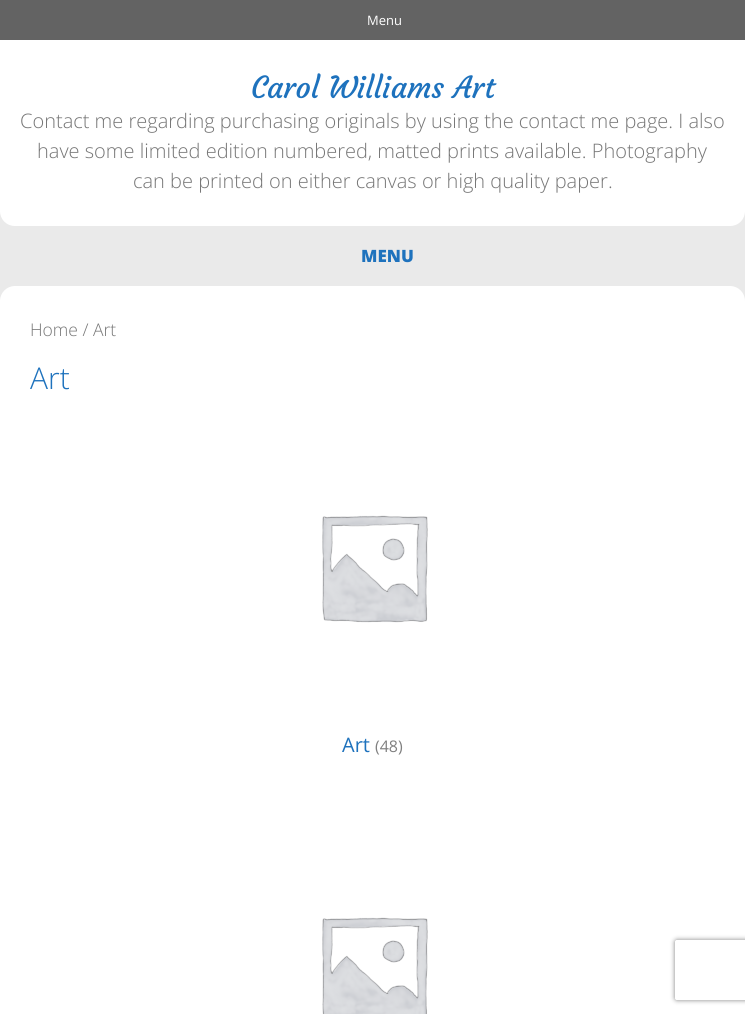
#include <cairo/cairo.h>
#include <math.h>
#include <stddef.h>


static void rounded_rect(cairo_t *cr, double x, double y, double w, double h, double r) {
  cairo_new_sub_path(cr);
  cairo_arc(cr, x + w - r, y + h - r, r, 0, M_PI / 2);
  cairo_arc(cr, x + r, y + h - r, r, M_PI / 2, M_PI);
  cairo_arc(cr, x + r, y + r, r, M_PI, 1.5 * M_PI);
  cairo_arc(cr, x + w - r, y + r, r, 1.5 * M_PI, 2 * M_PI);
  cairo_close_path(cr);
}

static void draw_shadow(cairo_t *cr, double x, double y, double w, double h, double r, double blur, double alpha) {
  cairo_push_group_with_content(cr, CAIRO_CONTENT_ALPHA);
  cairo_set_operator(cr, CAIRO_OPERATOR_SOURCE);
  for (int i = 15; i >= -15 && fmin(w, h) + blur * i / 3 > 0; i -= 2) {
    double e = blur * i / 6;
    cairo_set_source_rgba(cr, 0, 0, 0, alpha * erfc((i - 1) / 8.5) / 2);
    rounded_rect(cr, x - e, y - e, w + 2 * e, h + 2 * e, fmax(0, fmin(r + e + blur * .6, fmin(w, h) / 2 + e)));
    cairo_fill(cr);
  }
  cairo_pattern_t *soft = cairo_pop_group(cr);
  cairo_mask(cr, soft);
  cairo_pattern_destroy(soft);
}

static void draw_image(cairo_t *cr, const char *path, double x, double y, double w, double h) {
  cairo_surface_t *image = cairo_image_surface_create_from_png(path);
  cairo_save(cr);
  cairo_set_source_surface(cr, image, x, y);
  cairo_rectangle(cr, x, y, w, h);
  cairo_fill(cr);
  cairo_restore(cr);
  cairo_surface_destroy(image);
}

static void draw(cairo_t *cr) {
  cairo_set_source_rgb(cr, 234 / 255.0, 234 / 255.0, 234 / 255.0);
  cairo_paint(cr);
  cairo_set_source_rgb(cr, 99 / 255.0, 99 / 255.0, 99 / 255.0);
  cairo_rectangle(cr, 0, 0, 745, 40);
  cairo_fill(cr);
  cairo_set_source_rgb(cr, 1, 1, 1);
  cairo_new_path(cr);
  cairo_move_to(cr, 0, 40);
  cairo_line_to(cr, 745, 40);
  cairo_line_to(cr, 745, 211);
  cairo_curve_to(cr, 745, 219.5, 738.5, 226, 730, 226);
  cairo_line_to(cr, 15, 226);
  cairo_curve_to(cr, 6.5, 226, 0, 219.5, 0, 211);
  cairo_close_path(cr);
  cairo_fill(cr);
  rounded_rect(cr, 0, 286, 745, 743, 15);
  cairo_fill(cr);
  draw_image(cr, "images/1.png", 322, 515, 106, 108);
  draw_image(cr, "images/2.png", 322, 917, 106, 97);
  cairo_save(cr);
  cairo_set_fill_rule(cr, CAIRO_FILL_RULE_EVEN_ODD);
  cairo_new_path(cr);
  cairo_move_to(cr, 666, 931);
  cairo_line_to(cr, 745, 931);
  cairo_line_to(cr, 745, 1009);
  cairo_line_to(cr, 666, 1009);
  cairo_close_path(cr);
  cairo_move_to(cr, 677, 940);
  cairo_line_to(cr, 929, 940);
  cairo_curve_to(cr, 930, 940, 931, 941, 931, 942);
  cairo_line_to(cr, 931, 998);
  cairo_curve_to(cr, 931, 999, 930, 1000, 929, 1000);
  cairo_line_to(cr, 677, 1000);
  cairo_curve_to(cr, 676, 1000, 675, 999, 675, 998);
  cairo_line_to(cr, 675, 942);
  cairo_curve_to(cr, 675, 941, 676, 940, 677, 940);
  cairo_close_path(cr);
  cairo_clip(cr);
  cairo_set_source_rgb(cr, 128 / 255.0, 128 / 255.0, 128 / 255.0);
  draw_shadow(cr, 675, 940, 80, 60, 2, 2.5, 1);
  cairo_restore(cr);
  cairo_select_font_face(cr, "Open Sans", CAIRO_FONT_SLANT_NORMAL, CAIRO_FONT_WEIGHT_NORMAL);
  cairo_set_font_size(cr, 13);
  cairo_move_to(cr, 367, 25);
  cairo_show_text(cr, "Menu");
  cairo_select_font_face(cr, "Courgette", CAIRO_FONT_SLANT_NORMAL, CAIRO_FONT_WEIGHT_NORMAL);
  cairo_set_font_size(cr, 30);
  cairo_set_source_rgb(cr, 30 / 255.0, 114 / 255.0, 189 / 255.0);
  cairo_move_to(cr, 251, 98);
  cairo_show_text(cr, "Carol Williams Art");
  cairo_select_font_face(cr, "Open Sans Light", CAIRO_FONT_SLANT_NORMAL, CAIRO_FONT_WEIGHT_NORMAL);
  cairo_set_font_size(cr, 20);
  cairo_set_source_rgb(cr, 118 / 255.0, 118 / 255.0, 118 / 255.0);
  cairo_move_to(cr, 20, 128);
  cairo_show_text(cr, "Contact me regarding purchasing originals by using the contact me page. I also");
  cairo_move_to(cr, 37, 158);
  cairo_show_text(cr, "have some limited edition numbered, matted prints available. Photography");
  cairo_move_to(cr, 133, 188);
  cairo_show_text(cr, "can be printed on either canvas or high quality paper.");
  cairo_select_font_face(cr, "Open Sans ExtraBold", CAIRO_FONT_SLANT_NORMAL, CAIRO_FONT_WEIGHT_NORMAL);
  cairo_set_font_size(cr, 17);
  cairo_set_source_rgb(cr, 30 / 255.0, 114 / 255.0, 189 / 255.0);
  cairo_move_to(cr, 361, 262);
  cairo_show_text(cr, "MENU");
  cairo_select_font_face(cr, "Open Sans Light", CAIRO_FONT_SLANT_NORMAL, CAIRO_FONT_WEIGHT_NORMAL);
  cairo_set_font_size(cr, 17.5);
  cairo_set_source_rgb(cr, 118 / 255.0, 118 / 255.0, 118 / 255.0);
  cairo_move_to(cr, 30, 336);
  cairo_show_text(cr, "Home / Art");
  cairo_set_font_size(cr, 30);
  cairo_set_source_rgb(cr, 30 / 255.0, 114 / 255.0, 189 / 255.0);
  cairo_move_to(cr, 30, 389);
  cairo_show_text(cr, "Art");
  cairo_select_font_face(cr, "Open Sans", CAIRO_FONT_SLANT_NORMAL, CAIRO_FONT_WEIGHT_NORMAL);
  cairo_set_font_size(cr, 20);
  cairo_move_to(cr, 342, 752);
  cairo_show_text(cr, "Art");
  cairo_set_font_size(cr, 16);
  cairo_set_source_rgb(cr, 128 / 255.0, 128 / 255.0, 128 / 255.0);
  cairo_move_to(cr, 375, 752);
  cairo_show_text(cr, "(48)");
}

int main(void) {
  cairo_surface_t *surface = cairo_image_surface_create(CAIRO_FORMAT_RGB24, 745, 1014);
  cairo_t *cr = cairo_create(surface);
  cairo_font_options_t *options = cairo_font_options_create();
  cairo_font_options_set_hint_metrics(options, CAIRO_HINT_METRICS_OFF);
  cairo_font_options_set_hint_style(options, CAIRO_HINT_STYLE_NONE);
  cairo_set_font_options(cr, options);
  cairo_set_miter_limit(cr, 4);
  draw(cr);
  cairo_surface_write_to_png(surface, "out.png");
  cairo_font_options_destroy(options);
  cairo_destroy(cr);
  cairo_surface_destroy(surface);
  return 0;
}
